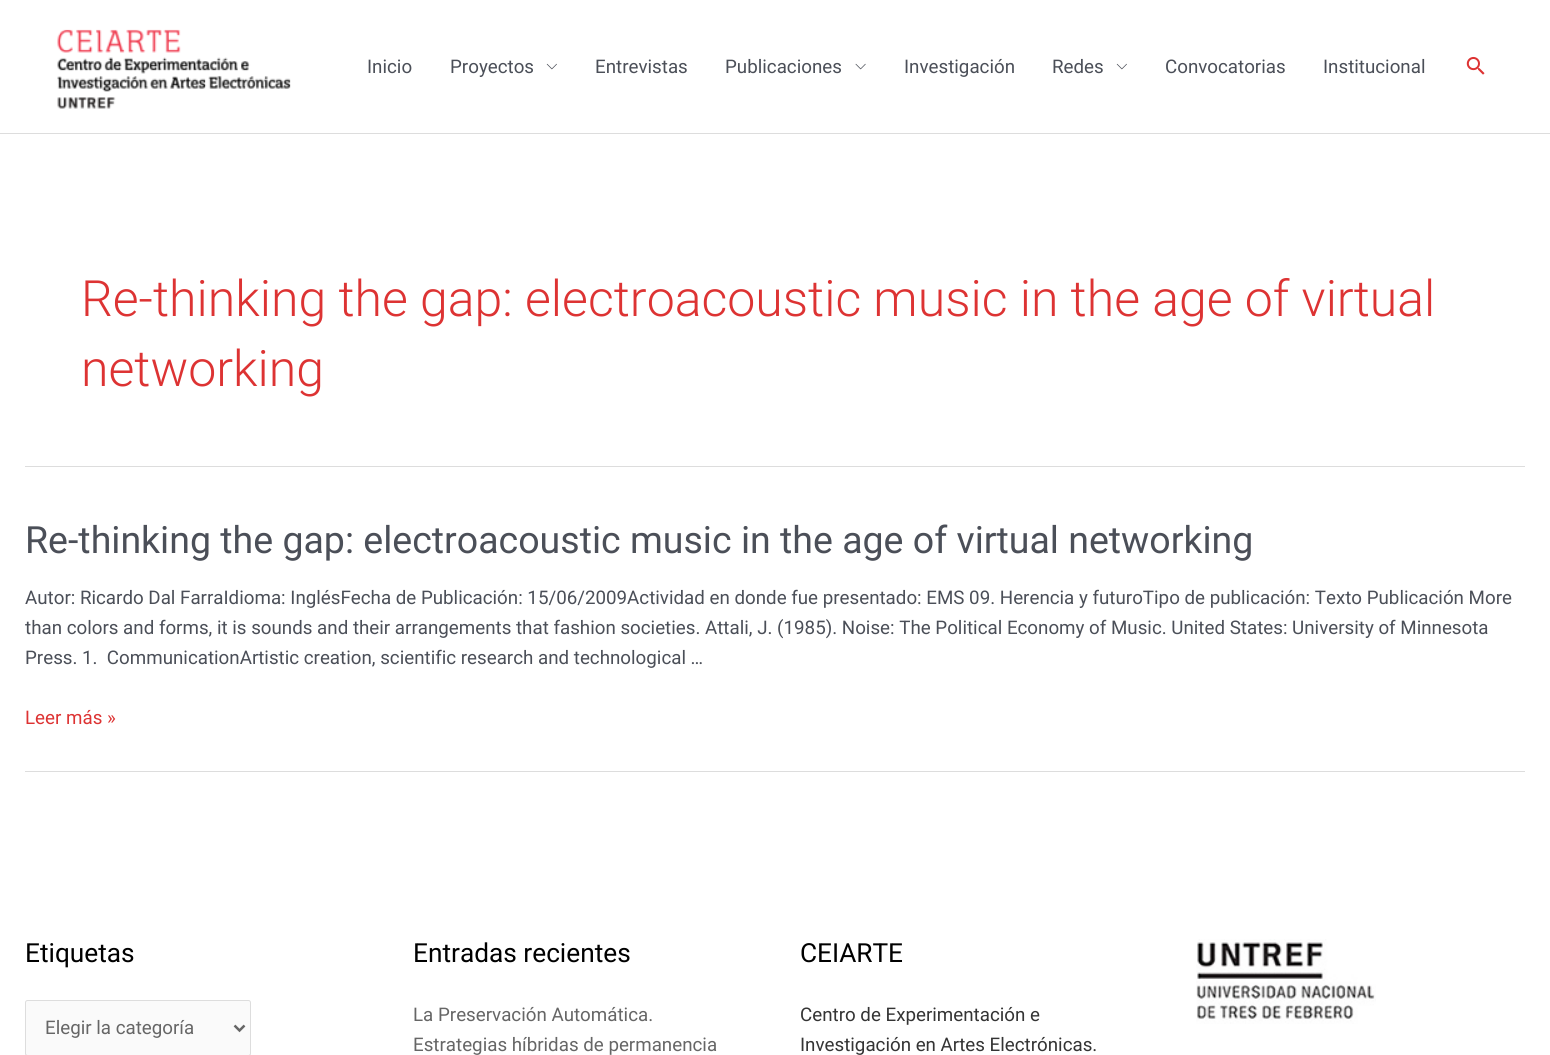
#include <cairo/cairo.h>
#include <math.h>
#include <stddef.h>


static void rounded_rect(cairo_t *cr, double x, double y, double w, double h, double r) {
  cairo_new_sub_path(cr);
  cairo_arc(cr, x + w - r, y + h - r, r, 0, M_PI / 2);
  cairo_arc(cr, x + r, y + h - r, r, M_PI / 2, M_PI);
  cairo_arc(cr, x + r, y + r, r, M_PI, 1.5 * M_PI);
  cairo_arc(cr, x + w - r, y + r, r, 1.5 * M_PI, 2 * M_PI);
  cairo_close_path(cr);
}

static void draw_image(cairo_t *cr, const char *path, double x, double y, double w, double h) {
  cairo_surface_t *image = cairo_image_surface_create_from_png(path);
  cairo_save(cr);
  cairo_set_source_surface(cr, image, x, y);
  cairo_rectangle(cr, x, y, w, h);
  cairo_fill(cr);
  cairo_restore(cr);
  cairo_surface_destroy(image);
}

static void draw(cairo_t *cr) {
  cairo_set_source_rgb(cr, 1, 1, 1);
  cairo_paint(cr);
  cairo_set_source_rgb(cr, 221 / 255.0, 221 / 255.0, 221 / 255.0);
  cairo_rectangle(cr, 0, 133, 1550, 1);
  cairo_fill(cr);
  draw_image(cr, "images/1.png", 57, 29, 234, 80);
  draw_image(cr, "images/2.png", 546, 63, 11, 7);
  draw_image(cr, "images/3.png", 855, 63, 11, 7);
  draw_image(cr, "images/2.png", 1116, 63, 11, 7);
  draw_image(cr, "images/4.png", 1466, 56, 19, 19);
  cairo_rectangle(cr, 25, 466, 1500, 1);
  cairo_fill(cr);
  cairo_rectangle(cr, 25, 771, 1500, 1);
  cairo_fill(cr);
  cairo_set_source_rgb(cr, 250 / 255.0, 250 / 255.0, 250 / 255.0);
  rounded_rect(cr, 25.5, 1000.5, 225, 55, 2);
  cairo_fill_preserve(cr);
  cairo_set_source_rgb(cr, 221 / 255.0, 221 / 255.0, 221 / 255.0);
  cairo_set_line_width(cr, 1);
  cairo_stroke(cr);
  cairo_new_path(cr);
  cairo_move_to(cr, 234.5, 1025.5);
  cairo_line_to(cr, 239.5, 1030.5);
  cairo_line_to(cr, 244.5, 1025.5);
  cairo_set_source_rgb(cr, 102 / 255.0, 102 / 255.0, 102 / 255.0);
  cairo_set_line_width(cr, 2.5);
  cairo_stroke(cr);
  draw_image(cr, "images/5.png", 1196, 939, 180, 85);
  cairo_select_font_face(cr, "Roboto", CAIRO_FONT_SLANT_NORMAL, CAIRO_FONT_WEIGHT_NORMAL);
  cairo_set_font_size(cr, 18.75);
  cairo_set_source_rgb(cr, 75 / 255.0, 79 / 255.0, 88 / 255.0);
  cairo_move_to(cr, 367, 73);
  cairo_show_text(cr, "Inicio");
  cairo_move_to(cr, 450, 73);
  cairo_show_text(cr, "Proyectos");
  cairo_move_to(cr, 595, 73);
  cairo_show_text(cr, "Entrevistas");
  cairo_move_to(cr, 725, 73);
  cairo_show_text(cr, "Publicaciones");
  cairo_move_to(cr, 904, 73);
  cairo_show_text(cr, "Investigación");
  cairo_move_to(cr, 1052, 73);
  cairo_show_text(cr, "Redes");
  cairo_move_to(cr, 1165, 73);
  cairo_show_text(cr, "Convocatorias");
  cairo_move_to(cr, 1323, 73);
  cairo_show_text(cr, "Institucional");
  cairo_select_font_face(cr, "Roboto Light", CAIRO_FONT_SLANT_NORMAL, CAIRO_FONT_WEIGHT_NORMAL);
  cairo_set_font_size(cr, 50);
  cairo_set_source_rgb(cr, 221 / 255.0, 51 / 255.0, 51 / 255.0);
  cairo_move_to(cr, 81, 316);
  cairo_show_text(cr, "Re-thinking the gap: electroacoustic music in the age of virtual");
  cairo_move_to(cr, 81, 386);
  cairo_show_text(cr, "networking");
  cairo_select_font_face(cr, "Roboto", CAIRO_FONT_SLANT_NORMAL, CAIRO_FONT_WEIGHT_NORMAL);
  cairo_set_font_size(cr, 37.5);
  cairo_set_source_rgb(cr, 75 / 255.0, 79 / 255.0, 88 / 255.0);
  cairo_move_to(cr, 25, 553);
  cairo_show_text(cr, "Re-thinking the gap: electroacoustic music in the age of virtual networking");
  cairo_set_font_size(cr, 18.75);
  cairo_move_to(cr, 25, 604);
  cairo_show_text(cr, "Autor: Ricardo Dal FarraIdioma: InglésFecha de Publicación: 15/06/2009Actividad en donde fue presentado: EMS 09. Herencia y futuroTipo de publicación: Texto Publicación More");
  cairo_move_to(cr, 25, 634);
  cairo_show_text(cr, "than colors and forms, it is sounds and their arrangements that fashion societies. Attali, J. (1985). Noise: The Political Economy of Music. United States: University of Minnesota");
  cairo_move_to(cr, 25, 664);
  cairo_show_text(cr, "Press. 1.  CommunicationArtistic creation, scientific research and technological …");
  cairo_set_source_rgb(cr, 221 / 255.0, 51 / 255.0, 51 / 255.0);
  cairo_move_to(cr, 25, 724);
  cairo_show_text(cr, "Leer más »");
  cairo_set_font_size(cr, 26.25);
  cairo_set_source_rgb(cr, 0, 0, 0);
  cairo_move_to(cr, 25, 962);
  cairo_show_text(cr, "Etiquetas");
  cairo_set_font_size(cr, 18.75);
  cairo_set_source_rgb(cr, 102 / 255.0, 102 / 255.0, 102 / 255.0);
  cairo_move_to(cr, 45, 1034);
  cairo_show_text(cr, "Elegir la categoría");
  cairo_set_font_size(cr, 26.25);
  cairo_set_source_rgb(cr, 0, 0, 0);
  cairo_move_to(cr, 413, 962);
  cairo_show_text(cr, "Entradas recientes");
  cairo_set_font_size(cr, 18.75);
  cairo_set_source_rgb(cr, 102 / 255.0, 102 / 255.0, 102 / 255.0);
  cairo_move_to(cr, 413, 1021);
  cairo_show_text(cr, "La Preservación Automática.");
  cairo_move_to(cr, 413, 1051);
  cairo_show_text(cr, "Estrategias híbridas de permanencia");
  cairo_set_font_size(cr, 26.25);
  cairo_set_source_rgb(cr, 0, 0, 0);
  cairo_move_to(cr, 800, 962);
  cairo_show_text(cr, "CEIARTE");
  cairo_set_font_size(cr, 18.75);
  cairo_set_source_rgb(cr, 52 / 255.0, 52 / 255.0, 52 / 255.0);
  cairo_move_to(cr, 800, 1021);
  cairo_show_text(cr, "Centro de Experimentación e");
  cairo_move_to(cr, 800, 1051);
  cairo_show_text(cr, "Investigación en Artes Electrónicas.");
}

int main(void) {
  cairo_surface_t *surface = cairo_image_surface_create(CAIRO_FORMAT_RGB24, 1550, 1055);
  cairo_t *cr = cairo_create(surface);
  cairo_font_options_t *options = cairo_font_options_create();
  cairo_font_options_set_hint_metrics(options, CAIRO_HINT_METRICS_OFF);
  cairo_font_options_set_hint_style(options, CAIRO_HINT_STYLE_NONE);
  cairo_set_font_options(cr, options);
  cairo_set_miter_limit(cr, 4);
  draw(cr);
  cairo_surface_write_to_png(surface, "out.png");
  cairo_font_options_destroy(options);
  cairo_destroy(cr);
  cairo_surface_destroy(surface);
  return 0;
}
